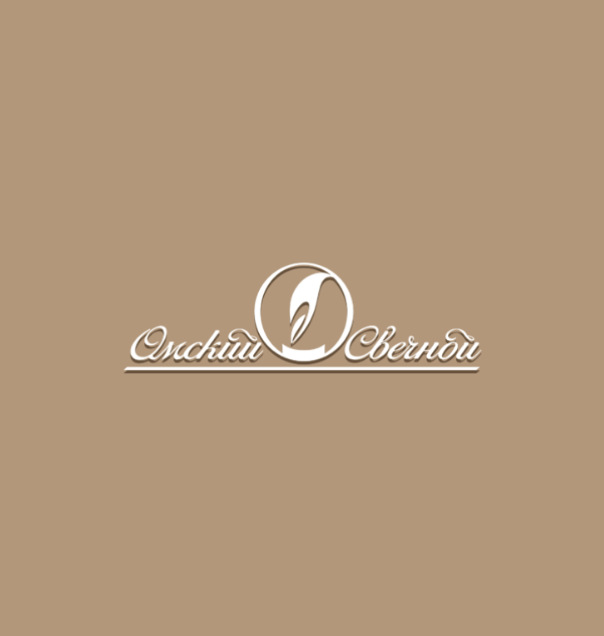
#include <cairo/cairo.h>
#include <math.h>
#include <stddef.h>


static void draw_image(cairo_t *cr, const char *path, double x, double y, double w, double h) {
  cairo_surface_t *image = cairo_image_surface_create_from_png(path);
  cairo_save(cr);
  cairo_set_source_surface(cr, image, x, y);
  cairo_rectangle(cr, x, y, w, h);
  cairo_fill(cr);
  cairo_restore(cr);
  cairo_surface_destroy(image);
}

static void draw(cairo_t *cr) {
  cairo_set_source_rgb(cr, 178 / 255.0, 151 / 255.0, 122 / 255.0);
  cairo_paint(cr);
  draw_image(cr, "images/1.png", 123, 262, 359, 112);
}

int main(void) {
  cairo_surface_t *surface = cairo_image_surface_create(CAIRO_FORMAT_RGB24, 604, 636);
  cairo_t *cr = cairo_create(surface);
  cairo_font_options_t *options = cairo_font_options_create();
  cairo_font_options_set_hint_metrics(options, CAIRO_HINT_METRICS_OFF);
  cairo_font_options_set_hint_style(options, CAIRO_HINT_STYLE_NONE);
  cairo_set_font_options(cr, options);
  cairo_set_miter_limit(cr, 4);
  draw(cr);
  cairo_surface_write_to_png(surface, "out.png");
  cairo_font_options_destroy(options);
  cairo_destroy(cr);
  cairo_surface_destroy(surface);
  return 0;
}
